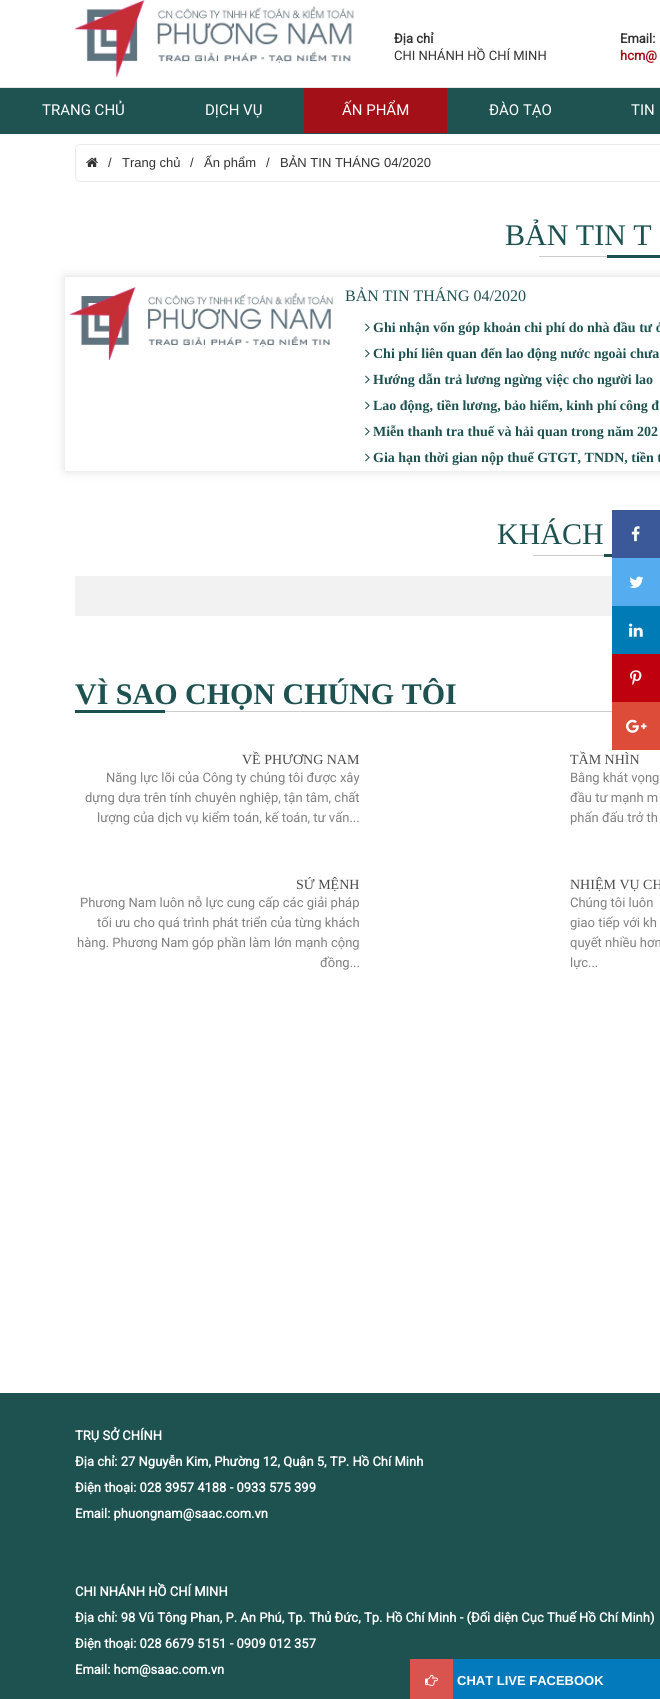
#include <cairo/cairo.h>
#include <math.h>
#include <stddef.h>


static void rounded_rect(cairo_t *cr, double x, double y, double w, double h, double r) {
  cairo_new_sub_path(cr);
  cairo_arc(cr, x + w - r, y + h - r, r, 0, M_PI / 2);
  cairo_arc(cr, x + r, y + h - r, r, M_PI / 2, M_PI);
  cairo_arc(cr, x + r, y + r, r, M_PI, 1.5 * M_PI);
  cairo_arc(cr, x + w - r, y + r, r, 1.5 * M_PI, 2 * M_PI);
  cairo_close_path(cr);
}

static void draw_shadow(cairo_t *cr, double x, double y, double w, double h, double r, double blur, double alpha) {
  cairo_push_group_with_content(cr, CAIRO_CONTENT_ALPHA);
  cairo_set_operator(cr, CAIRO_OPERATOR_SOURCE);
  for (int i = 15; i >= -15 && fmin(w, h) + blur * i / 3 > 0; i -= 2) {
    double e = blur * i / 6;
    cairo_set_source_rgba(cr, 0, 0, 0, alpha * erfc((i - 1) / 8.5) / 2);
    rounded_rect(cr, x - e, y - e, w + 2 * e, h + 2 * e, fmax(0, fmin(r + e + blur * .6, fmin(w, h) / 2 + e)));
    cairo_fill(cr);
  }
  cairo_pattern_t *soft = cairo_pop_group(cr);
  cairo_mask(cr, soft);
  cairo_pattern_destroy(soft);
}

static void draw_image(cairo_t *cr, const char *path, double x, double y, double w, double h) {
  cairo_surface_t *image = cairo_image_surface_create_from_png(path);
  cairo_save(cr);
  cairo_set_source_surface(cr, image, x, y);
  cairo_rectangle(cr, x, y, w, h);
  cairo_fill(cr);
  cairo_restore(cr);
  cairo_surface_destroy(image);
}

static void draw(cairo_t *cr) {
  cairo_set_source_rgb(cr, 1, 1, 1);
  cairo_paint(cr);
  cairo_set_source_rgb(cr, 229 / 255.0, 229 / 255.0, 229 / 255.0);
  cairo_rectangle(cr, 0, 87, 660, 1);
  cairo_fill(cr);
  draw_image(cr, "images/1.png", 75, 0, 279, 77);
  cairo_set_source_rgb(cr, 30 / 255.0, 83 / 255.0, 82 / 255.0);
  cairo_rectangle(cr, 0, 88, 660, 46);
  cairo_fill(cr);
  cairo_set_source_rgb(cr, 163 / 255.0, 16 / 255.0, 24 / 255.0);
  cairo_rectangle(cr, 304, 88, 143, 45);
  cairo_fill(cr);
  rounded_rect(cr, 75.5, 144.5, 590, 37, 4.5);
  cairo_set_source_rgb(cr, 235 / 255.0, 235 / 255.0, 235 / 255.0);
  cairo_set_line_width(cr, 1);
  cairo_stroke(cr);
  draw_image(cr, "images/2.png", 86, 157, 12, 10);
  cairo_set_source_rgb(cr, 204 / 255.0, 204 / 255.0, 204 / 255.0);
  cairo_rectangle(cr, 539, 256, 68, 1);
  cairo_fill(cr);
  cairo_set_source_rgb(cr, 29 / 255.0, 82 / 255.0, 81 / 255.0);
  cairo_rectangle(cr, 607, 255, 53, 3);
  cairo_fill(cr);
  cairo_save(cr);
  cairo_set_fill_rule(cr, CAIRO_FILL_RULE_EVEN_ODD);
  cairo_new_path(cr);
  cairo_move_to(cr, 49, 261);
  cairo_line_to(cr, 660, 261);
  cairo_line_to(cr, 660, 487);
  cairo_line_to(cr, 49, 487);
  cairo_close_path(cr);
  cairo_move_to(cr, 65, 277);
  cairo_line_to(cr, 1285, 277);
  cairo_line_to(cr, 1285, 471);
  cairo_line_to(cr, 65, 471);
  cairo_close_path(cr);
  cairo_clip(cr);
  cairo_set_source_rgb(cr, 221 / 255.0, 221 / 255.0, 221 / 255.0);
  draw_shadow(cr, 65, 277, 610, 194, 0, 5, 1);
  cairo_restore(cr);
  draw_image(cr, "images/3.png", 70, 287, 263, 73);
  draw_image(cr, "images/4.png", 365, 323, 5, 9);
  draw_image(cr, "images/4.png", 365, 349, 5, 9);
  draw_image(cr, "images/4.png", 365, 375, 5, 9);
  draw_image(cr, "images/4.png", 365, 401, 5, 9);
  draw_image(cr, "images/4.png", 365, 427, 5, 9);
  draw_image(cr, "images/4.png", 365, 453, 5, 9);
  cairo_set_source_rgb(cr, 204 / 255.0, 204 / 255.0, 204 / 255.0);
  cairo_rectangle(cr, 533, 555, 71, 1);
  cairo_fill(cr);
  cairo_set_source_rgb(cr, 29 / 255.0, 82 / 255.0, 81 / 255.0);
  cairo_rectangle(cr, 604, 554, 8, 3);
  cairo_fill(cr);
  cairo_set_source_rgb(cr, 242 / 255.0, 242 / 255.0, 242 / 255.0);
  cairo_rectangle(cr, 75, 576, 537, 40);
  cairo_fill(cr);
  cairo_set_source_rgb(cr, 204 / 255.0, 204 / 255.0, 204 / 255.0);
  cairo_rectangle(cr, 165, 711, 447, 1);
  cairo_fill(cr);
  cairo_set_source_rgb(cr, 29 / 255.0, 82 / 255.0, 81 / 255.0);
  cairo_rectangle(cr, 75, 710, 90, 3);
  cairo_fill(cr);
  cairo_rectangle(cr, 0, 1393, 660, 306);
  cairo_fill(cr);
  cairo_set_source_rgb(cr, 59 / 255.0, 89 / 255.0, 152 / 255.0);
  cairo_rectangle(cr, 612, 510, 48, 48);
  cairo_fill(cr);
  draw_image(cr, "images/5.png", 631, 526, 9, 16);
  cairo_set_source_rgb(cr, 85 / 255.0, 172 / 255.0, 238 / 255.0);
  cairo_rectangle(cr, 612, 558, 48, 48);
  cairo_fill(cr);
  draw_image(cr, "images/6.png", 629, 576, 15, 12);
  cairo_set_source_rgb(cr, 0, 123 / 255.0, 182 / 255.0);
  cairo_rectangle(cr, 612, 606, 48, 48);
  cairo_fill(cr);
  draw_image(cr, "images/7.png", 629, 623, 14, 14);
  cairo_set_source_rgb(cr, 190 / 255.0, 0, 15 / 255.0);
  cairo_rectangle(cr, 612, 654, 48, 48);
  cairo_fill(cr);
  draw_image(cr, "images/8.png", 630, 670, 12, 16);
  cairo_set_source_rgb(cr, 221 / 255.0, 75 / 255.0, 57 / 255.0);
  cairo_rectangle(cr, 612, 702, 48, 48);
  cairo_fill(cr);
  draw_image(cr, "images/9.png", 626, 719, 21, 14);
  cairo_set_source_rgb(cr, 3 / 255.0, 122 / 255.0, 188 / 255.0);
  cairo_rectangle(cr, 453, 1659, 207, 40);
  cairo_fill(cr);
  cairo_set_source_rgb(cr, 217 / 255.0, 83 / 255.0, 79 / 255.0);
  cairo_rectangle(cr, 410, 1659, 43, 40);
  cairo_fill(cr);
  draw_image(cr, "images/10.png", 425, 1674, 13, 12);
  cairo_select_font_face(cr, "Roboto", CAIRO_FONT_SLANT_NORMAL, CAIRO_FONT_WEIGHT_BOLD);
  cairo_set_font_size(cr, 13);
  cairo_set_source_rgb(cr, 51 / 255.0, 51 / 255.0, 51 / 255.0);
  cairo_move_to(cr, 394, 43);
  cairo_show_text(cr, "Địa chỉ");
  cairo_select_font_face(cr, "Roboto", CAIRO_FONT_SLANT_NORMAL, CAIRO_FONT_WEIGHT_NORMAL);
  cairo_move_to(cr, 394, 60);
  cairo_show_text(cr, "CHI NHÁNH HỒ CHÍ MINH");
  cairo_select_font_face(cr, "Roboto", CAIRO_FONT_SLANT_NORMAL, CAIRO_FONT_WEIGHT_BOLD);
  cairo_move_to(cr, 620, 43);
  cairo_show_text(cr, "Email:");
  cairo_set_source_rgb(cr, 163 / 255.0, 16 / 255.0, 24 / 255.0);
  cairo_move_to(cr, 620, 60);
  cairo_show_text(cr, "hcm@");
  cairo_select_font_face(cr, "Roboto", CAIRO_FONT_SLANT_NORMAL, CAIRO_FONT_WEIGHT_NORMAL);
  cairo_set_font_size(cr, 15);
  cairo_set_source_rgb(cr, 1, 1, 1);
  cairo_move_to(cr, 42, 115);
  cairo_show_text(cr, "TRANG CHỦ");
  cairo_move_to(cr, 205, 115);
  cairo_show_text(cr, "DỊCH VỤ");
  cairo_move_to(cr, 342, 115);
  cairo_show_text(cr, "ẤN PHẨM");
  cairo_move_to(cr, 489, 115);
  cairo_show_text(cr, "ĐÀO TẠO");
  cairo_move_to(cr, 631, 115);
  cairo_show_text(cr, "TIN");
  cairo_select_font_face(cr, "Liberation Sans", CAIRO_FONT_SLANT_NORMAL, CAIRO_FONT_WEIGHT_NORMAL);
  cairo_set_font_size(cr, 13);
  cairo_set_source_rgb(cr, 51 / 255.0, 51 / 255.0, 51 / 255.0);
  cairo_move_to(cr, 108, 167);
  cairo_show_text(cr, "/");
  cairo_move_to(cr, 122, 167);
  cairo_show_text(cr, "Trang chủ");
  cairo_move_to(cr, 190, 167);
  cairo_show_text(cr, "/");
  cairo_move_to(cr, 204, 167);
  cairo_show_text(cr, "Ấn phẩm");
  cairo_move_to(cr, 266, 167);
  cairo_show_text(cr, "/");
  cairo_move_to(cr, 280, 167);
  cairo_show_text(cr, "BẢN TIN THÁNG 04/2020");
  cairo_select_font_face(cr, "Liberation Serif", CAIRO_FONT_SLANT_NORMAL, CAIRO_FONT_WEIGHT_NORMAL);
  cairo_set_font_size(cr, 30);
  cairo_set_source_rgb(cr, 29 / 255.0, 82 / 255.0, 81 / 255.0);
  cairo_move_to(cr, 505, 245);
  cairo_show_text(cr, "BẢN TIN T");
  cairo_set_font_size(cr, 16);
  cairo_move_to(cr, 345, 301);
  cairo_show_text(cr, "BẢN TIN THÁNG 04/2020");
  cairo_select_font_face(cr, "Liberation Serif", CAIRO_FONT_SLANT_NORMAL, CAIRO_FONT_WEIGHT_BOLD);
  cairo_set_font_size(cr, 14);
  cairo_move_to(cr, 373, 332);
  cairo_show_text(cr, "Ghi nhận vốn góp khoản chi phí do nhà đầu tư ở");
  cairo_move_to(cr, 373, 358);
  cairo_show_text(cr, "Chi phí liên quan đến lao động nước ngoài chưa");
  cairo_move_to(cr, 373, 384);
  cairo_show_text(cr, "Hướng dẫn trả lương ngừng việc cho người lao");
  cairo_move_to(cr, 373, 410);
  cairo_show_text(cr, "Lao động, tiền lương, bảo hiểm, kinh phí công đ");
  cairo_move_to(cr, 373, 436);
  cairo_show_text(cr, "Miễn thanh tra thuế và hải quan trong năm 202");
  cairo_move_to(cr, 373, 462);
  cairo_show_text(cr, "Gia hạn thời gian nộp thuế GTGT, TNDN, tiền t");
  cairo_select_font_face(cr, "Liberation Serif", CAIRO_FONT_SLANT_NORMAL, CAIRO_FONT_WEIGHT_NORMAL);
  cairo_set_font_size(cr, 30);
  cairo_move_to(cr, 497, 544);
  cairo_show_text(cr, "KHÁCH");
  cairo_select_font_face(cr, "Liberation Serif", CAIRO_FONT_SLANT_NORMAL, CAIRO_FONT_WEIGHT_BOLD);
  cairo_move_to(cr, 75, 704);
  cairo_show_text(cr, "VÌ SAO CHỌN CHÚNG TÔI");
  cairo_select_font_face(cr, "Liberation Serif", CAIRO_FONT_SLANT_NORMAL, CAIRO_FONT_WEIGHT_NORMAL);
  cairo_set_font_size(cr, 14);
  cairo_set_source_rgb(cr, 76 / 255.0, 76 / 255.0, 76 / 255.0);
  cairo_move_to(cr, 242, 764);
  cairo_show_text(cr, "VỀ PHƯƠNG NAM");
  cairo_select_font_face(cr, "Roboto", CAIRO_FONT_SLANT_NORMAL, CAIRO_FONT_WEIGHT_NORMAL);
  cairo_set_font_size(cr, 13);
  cairo_set_source_rgb(cr, 128 / 255.0, 128 / 255.0, 128 / 255.0);
  cairo_move_to(cr, 106, 782);
  cairo_show_text(cr, "Năng lực lõi của Công ty chúng tôi được xây");
  cairo_move_to(cr, 85, 802);
  cairo_show_text(cr, "dựng dựa trên tính chuyên nghiệp, tận tâm, chất");
  cairo_move_to(cr, 97, 822);
  cairo_show_text(cr, "lượng của dịch vụ kiểm toán, kế toán, tư vấn...");
  cairo_select_font_face(cr, "Liberation Serif", CAIRO_FONT_SLANT_NORMAL, CAIRO_FONT_WEIGHT_NORMAL);
  cairo_set_font_size(cr, 14);
  cairo_set_source_rgb(cr, 76 / 255.0, 76 / 255.0, 76 / 255.0);
  cairo_move_to(cr, 570, 764);
  cairo_show_text(cr, "TẦM NHÌN");
  cairo_select_font_face(cr, "Roboto", CAIRO_FONT_SLANT_NORMAL, CAIRO_FONT_WEIGHT_NORMAL);
  cairo_set_font_size(cr, 13);
  cairo_set_source_rgb(cr, 128 / 255.0, 128 / 255.0, 128 / 255.0);
  cairo_move_to(cr, 570, 782);
  cairo_show_text(cr, "Bằng khát vọng");
  cairo_move_to(cr, 570, 802);
  cairo_show_text(cr, "đầu tư mạnh m");
  cairo_move_to(cr, 570, 822);
  cairo_show_text(cr, "phấn đấu trở th");
  cairo_select_font_face(cr, "Liberation Serif", CAIRO_FONT_SLANT_NORMAL, CAIRO_FONT_WEIGHT_NORMAL);
  cairo_set_font_size(cr, 14);
  cairo_set_source_rgb(cr, 76 / 255.0, 76 / 255.0, 76 / 255.0);
  cairo_move_to(cr, 296, 889);
  cairo_show_text(cr, "SỨ MỆNH");
  cairo_select_font_face(cr, "Roboto", CAIRO_FONT_SLANT_NORMAL, CAIRO_FONT_WEIGHT_NORMAL);
  cairo_set_font_size(cr, 13);
  cairo_set_source_rgb(cr, 128 / 255.0, 128 / 255.0, 128 / 255.0);
  cairo_move_to(cr, 80, 907);
  cairo_show_text(cr, "Phương Nam luôn nỗ lực cung cấp các giải pháp");
  cairo_move_to(cr, 97, 927);
  cairo_show_text(cr, "tối ưu cho quá trình phát triển của từng khách");
  cairo_move_to(cr, 77, 947);
  cairo_show_text(cr, "hàng. Phương Nam góp phần làm lớn mạnh cộng");
  cairo_move_to(cr, 320, 967);
  cairo_show_text(cr, "đồng...");
  cairo_select_font_face(cr, "Liberation Serif", CAIRO_FONT_SLANT_NORMAL, CAIRO_FONT_WEIGHT_NORMAL);
  cairo_set_font_size(cr, 14);
  cairo_set_source_rgb(cr, 76 / 255.0, 76 / 255.0, 76 / 255.0);
  cairo_move_to(cr, 570, 889);
  cairo_show_text(cr, "NHIỆM VỤ CH");
  cairo_select_font_face(cr, "Roboto", CAIRO_FONT_SLANT_NORMAL, CAIRO_FONT_WEIGHT_NORMAL);
  cairo_set_font_size(cr, 13);
  cairo_set_source_rgb(cr, 128 / 255.0, 128 / 255.0, 128 / 255.0);
  cairo_move_to(cr, 570, 907);
  cairo_show_text(cr, "Chúng tôi luôn");
  cairo_move_to(cr, 570, 927);
  cairo_show_text(cr, "giao tiếp với kh");
  cairo_move_to(cr, 570, 947);
  cairo_show_text(cr, "quyết nhiều hơn");
  cairo_move_to(cr, 570, 967);
  cairo_show_text(cr, "lực...");
  cairo_select_font_face(cr, "Roboto", CAIRO_FONT_SLANT_NORMAL, CAIRO_FONT_WEIGHT_BOLD);
  cairo_set_source_rgb(cr, 1, 1, 1);
  cairo_move_to(cr, 75, 1440);
  cairo_show_text(cr, "TRỤ SỞ CHÍNH");
  cairo_move_to(cr, 75, 1466);
  cairo_show_text(cr, "Địa chỉ: 27 Nguyễn Kim, Phường 12, Quận 5, TP. Hồ Chí Minh");
  cairo_move_to(cr, 75, 1492);
  cairo_show_text(cr, "Điện thoại: 028 3957 4188 - 0933 575 399");
  cairo_move_to(cr, 75, 1518);
  cairo_show_text(cr, "Email: phuongnam@saac.com.vn");
  cairo_move_to(cr, 75, 1596);
  cairo_show_text(cr, "CHI NHÁNH HỒ CHÍ MINH");
  cairo_move_to(cr, 75, 1622);
  cairo_show_text(cr, "Địa chỉ: 98 Vũ Tông Phan, P. An Phú, Tp. Thủ Đức, Tp. Hồ Chí Minh - (Đối diện Cục Thuế Hồ Chí Minh)");
  cairo_move_to(cr, 75, 1648);
  cairo_show_text(cr, "Điện thoại: 028 6679 5151 - 0909 012 357");
  cairo_move_to(cr, 75, 1674);
  cairo_show_text(cr, "Email: hcm@saac.com.vn");
  cairo_select_font_face(cr, "Liberation Sans", CAIRO_FONT_SLANT_NORMAL, CAIRO_FONT_WEIGHT_BOLD);
  cairo_move_to(cr, 457, 1685);
  cairo_show_text(cr, "CHAT LIVE FACEBOOK");
}

int main(void) {
  cairo_surface_t *surface = cairo_image_surface_create(CAIRO_FORMAT_RGB24, 660, 1699);
  cairo_t *cr = cairo_create(surface);
  cairo_font_options_t *options = cairo_font_options_create();
  cairo_font_options_set_hint_metrics(options, CAIRO_HINT_METRICS_OFF);
  cairo_font_options_set_hint_style(options, CAIRO_HINT_STYLE_NONE);
  cairo_set_font_options(cr, options);
  cairo_set_miter_limit(cr, 4);
  draw(cr);
  cairo_surface_write_to_png(surface, "out.png");
  cairo_font_options_destroy(options);
  cairo_destroy(cr);
  cairo_surface_destroy(surface);
  return 0;
}
